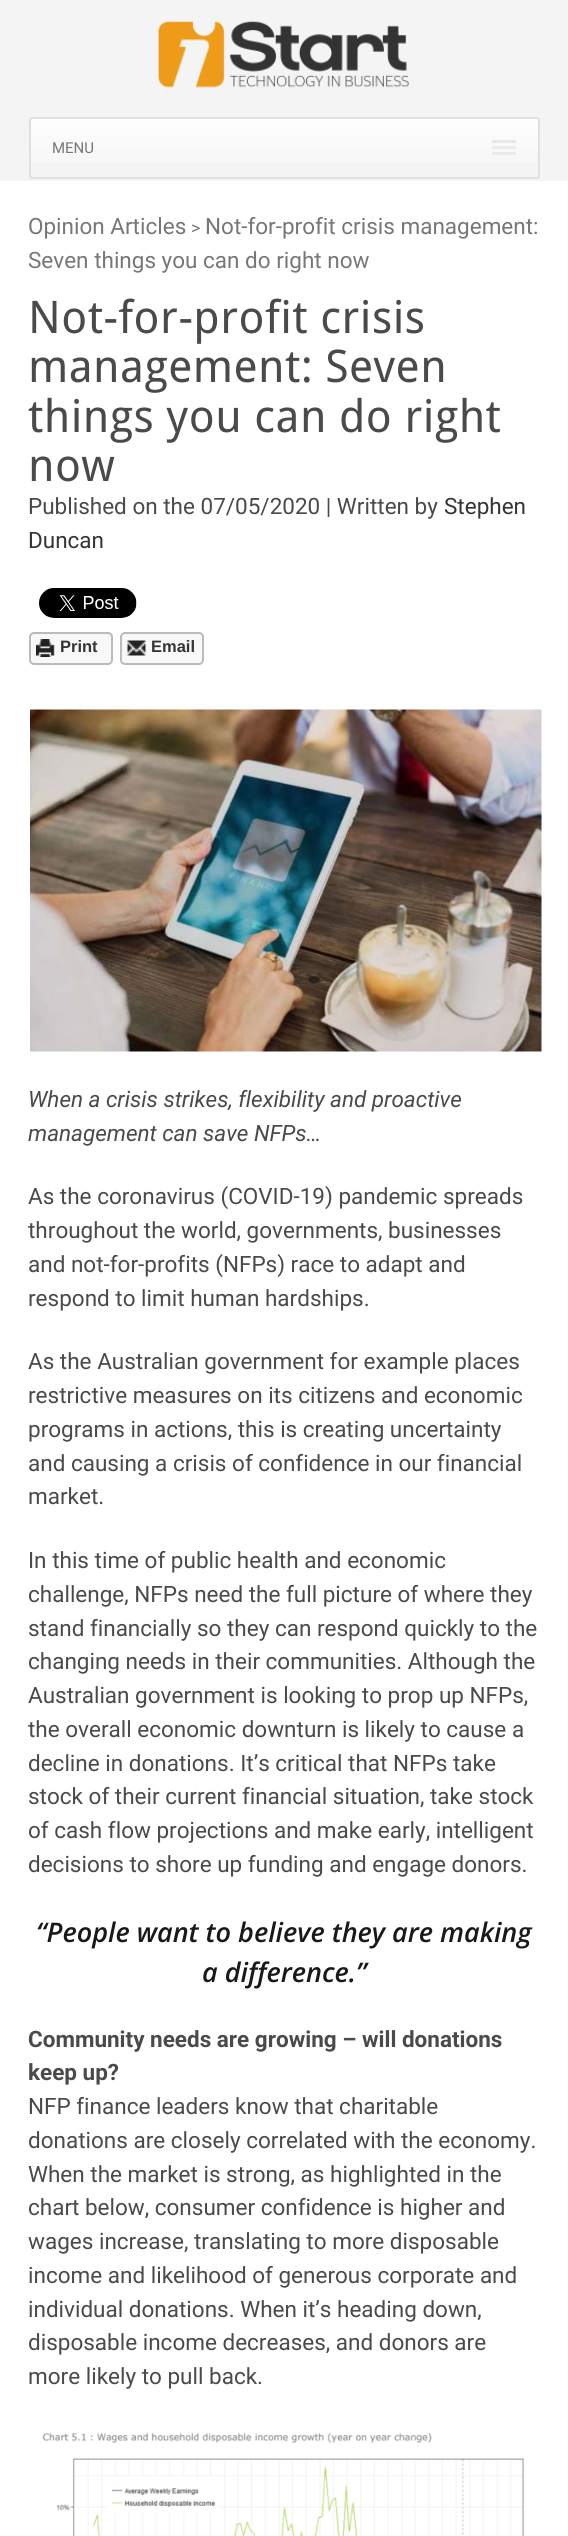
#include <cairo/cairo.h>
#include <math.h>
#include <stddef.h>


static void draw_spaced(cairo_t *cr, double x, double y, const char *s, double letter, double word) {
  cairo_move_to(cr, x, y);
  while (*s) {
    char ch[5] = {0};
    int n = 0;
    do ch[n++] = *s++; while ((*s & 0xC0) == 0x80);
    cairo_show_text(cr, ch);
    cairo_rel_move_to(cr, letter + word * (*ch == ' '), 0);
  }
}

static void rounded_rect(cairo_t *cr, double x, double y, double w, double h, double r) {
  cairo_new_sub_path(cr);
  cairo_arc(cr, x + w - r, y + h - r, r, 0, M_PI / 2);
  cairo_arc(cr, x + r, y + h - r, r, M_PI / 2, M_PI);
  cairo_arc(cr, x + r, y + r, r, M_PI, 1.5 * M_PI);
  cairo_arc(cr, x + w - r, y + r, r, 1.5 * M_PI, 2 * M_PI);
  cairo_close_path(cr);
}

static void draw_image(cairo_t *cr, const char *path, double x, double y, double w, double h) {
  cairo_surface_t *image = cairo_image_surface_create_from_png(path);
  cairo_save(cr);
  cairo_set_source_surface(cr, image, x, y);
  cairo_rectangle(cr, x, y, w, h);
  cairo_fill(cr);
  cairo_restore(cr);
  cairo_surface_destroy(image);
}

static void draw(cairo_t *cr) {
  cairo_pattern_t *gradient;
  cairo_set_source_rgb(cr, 1, 1, 1);
  cairo_paint(cr);
  cairo_set_source_rgb(cr, 244 / 255.0, 244 / 255.0, 244 / 255.0);
  cairo_rectangle(cr, 0, 0, 568, 181);
  cairo_fill(cr);
  draw_image(cr, "images/1.png", 158, 21, 251, 67);
  gradient = cairo_pattern_create_linear(284, 118, 284, 177);
  cairo_pattern_add_color_stop_rgba(gradient, 0, 254 / 255.0, 254 / 255.0, 254 / 255.0, 1);
  cairo_pattern_add_color_stop_rgba(gradient, 1, 244 / 255.0, 244 / 255.0, 244 / 255.0, 1);
  cairo_set_source(cr, gradient);
  cairo_pattern_destroy(gradient);
  cairo_rectangle(cr, 31, 119, 507, 43);
  cairo_fill(cr);
  cairo_set_source_rgba(cr, 1, 1, 1, 0.9);
  cairo_new_path(cr);
  cairo_move_to(cr, 32, 120);
  cairo_line_to(cr, 537, 120);
  cairo_curve_to(cr, 538, 120, 538, 121, 538, 122);
  cairo_line_to(cr, 538, 177);
  cairo_line_to(cr, 539, 176);
  cairo_line_to(cr, 539, 130);
  cairo_curve_to(cr, 539, 127, 541, 119, 538, 119);
  cairo_line_to(cr, 32, 119);
  cairo_curve_to(cr, 30, 119, 30, 121, 30, 122);
  cairo_curve_to(cr, 30, 121, 31, 120, 32, 120);
  cairo_close_path(cr);
  cairo_fill(cr);
  rounded_rect(cr, 30, 118, 509, 60, 2);
  cairo_set_source_rgb(cr, 224 / 255.0, 224 / 255.0, 224 / 255.0);
  cairo_stroke(cr);
  cairo_set_source_rgb(cr, 235 / 255.0, 235 / 255.0, 235 / 255.0);
  cairo_rectangle(cr, 492, 152, 24, 3);
  cairo_fill(cr);
  cairo_set_source_rgb(cr, 232 / 255.0, 232 / 255.0, 232 / 255.0);
  cairo_rectangle(cr, 492, 140, 24, 3);
  cairo_fill(cr);
  cairo_set_source_rgb(cr, 234 / 255.0, 234 / 255.0, 234 / 255.0);
  cairo_rectangle(cr, 492, 146, 24, 3);
  cairo_fill(cr);
  draw_image(cr, "images/2.png", 39, 588, 98, 30);
  cairo_set_source_rgb(cr, 248 / 255.0, 248 / 255.0, 248 / 255.0);
  rounded_rect(cr, 30, 633, 82, 31, 4);
  cairo_fill_preserve(cr);
  cairo_set_source_rgb(cr, 187 / 255.0, 187 / 255.0, 187 / 255.0);
  cairo_stroke(cr);
  draw_image(cr, "images/3.png", 36, 639, 19, 18);
  cairo_set_source_rgb(cr, 248 / 255.0, 248 / 255.0, 248 / 255.0);
  rounded_rect(cr, 121, 633, 82, 31, 4);
  cairo_fill_preserve(cr);
  cairo_set_source_rgb(cr, 187 / 255.0, 187 / 255.0, 187 / 255.0);
  cairo_stroke(cr);
  draw_image(cr, "images/4.png", 127, 640, 19, 16);
  draw_image(cr, "images/5.png", 30, 709, 512, 343);
  draw_image(cr, "images/6.png", 42, 2432, 482, 104);
  cairo_select_font_face(cr, "Roboto", CAIRO_FONT_SLANT_NORMAL, CAIRO_FONT_WEIGHT_NORMAL);
  cairo_set_font_size(cr, 15);
  cairo_set_source_rgb(cr, 119 / 255.0, 119 / 255.0, 119 / 255.0);
  cairo_move_to(cr, 52, 153);
  cairo_show_text(cr, "MENU");
  cairo_set_font_size(cr, 22.5);
  cairo_move_to(cr, 28, 234);
  cairo_show_text(cr, "Opinion Articles");
  cairo_set_font_size(cr, 18);
  cairo_move_to(cr, 191, 234);
  cairo_show_text(cr, ">");
  cairo_set_font_size(cr, 22.5);
  cairo_move_to(cr, 205, 234);
  cairo_show_text(cr, "Not-for-profit crisis management:");
  cairo_move_to(cr, 28, 268);
  cairo_show_text(cr, "Seven things you can do right now");
  cairo_select_font_face(cr, "Droid Sans", CAIRO_FONT_SLANT_NORMAL, CAIRO_FONT_WEIGHT_NORMAL);
  cairo_set_font_size(cr, 45);
  cairo_set_source_rgb(cr, 74 / 255.0, 74 / 255.0, 73 / 255.0);
  draw_spaced(cr, 28, 333, "Not-for-profit crisis", 0.45, 0);
  draw_spaced(cr, 28, 382, "management: Seven", 0.45, 0);
  draw_spaced(cr, 28, 432, "things you can do right", 0.45, 0);
  draw_spaced(cr, 28, 481, "now", 0.45, 0);
  cairo_select_font_face(cr, "Roboto", CAIRO_FONT_SLANT_NORMAL, CAIRO_FONT_WEIGHT_NORMAL);
  cairo_set_font_size(cr, 22.5);
  cairo_move_to(cr, 28, 514);
  cairo_show_text(cr, "Published on the 07/05/2020 | Written by");
  cairo_set_source_rgb(cr, 53 / 255.0, 53 / 255.0, 53 / 255.0);
  cairo_move_to(cr, 444, 514);
  cairo_show_text(cr, "Stephen");
  cairo_move_to(cr, 28, 548);
  cairo_show_text(cr, "Duncan");
  cairo_select_font_face(cr, "Liberation Sans", CAIRO_FONT_SLANT_NORMAL, CAIRO_FONT_WEIGHT_BOLD);
  cairo_set_font_size(cr, 16.5);
  cairo_move_to(cr, 60, 652);
  cairo_show_text(cr, "Print");
  cairo_move_to(cr, 151, 652);
  cairo_show_text(cr, "Email");
  cairo_select_font_face(cr, "Roboto", CAIRO_FONT_SLANT_ITALIC, CAIRO_FONT_WEIGHT_NORMAL);
  cairo_set_font_size(cr, 22.5);
  cairo_set_source_rgb(cr, 74 / 255.0, 74 / 255.0, 73 / 255.0);
  cairo_move_to(cr, 28, 1107);
  cairo_show_text(cr, "When a crisis strikes, flexibility and proactive");
  cairo_move_to(cr, 28, 1141);
  cairo_show_text(cr, "management can save NFPs…");
  cairo_select_font_face(cr, "Roboto", CAIRO_FONT_SLANT_NORMAL, CAIRO_FONT_WEIGHT_NORMAL);
  cairo_move_to(cr, 28, 1204);
  cairo_show_text(cr, "As the coronavirus (COVID-19) pandemic spreads");
  cairo_move_to(cr, 28, 1238);
  cairo_show_text(cr, "throughout the world, governments, businesses");
  cairo_move_to(cr, 28, 1272);
  cairo_show_text(cr, "and not-for-profits (NFPs) race to adapt and");
  cairo_move_to(cr, 28, 1306);
  cairo_show_text(cr, "respond to limit human hardships.");
  cairo_move_to(cr, 28, 1369);
  cairo_show_text(cr, "As the Australian government for example places");
  cairo_move_to(cr, 28, 1403);
  cairo_show_text(cr, "restrictive measures on its citizens and economic");
  cairo_move_to(cr, 28, 1437);
  cairo_show_text(cr, "programs in actions, this is creating uncertainty");
  cairo_move_to(cr, 28, 1471);
  cairo_show_text(cr, "and causing a crisis of confidence in our financial");
  cairo_move_to(cr, 28, 1504);
  cairo_show_text(cr, "market.");
  cairo_move_to(cr, 28, 1568);
  cairo_show_text(cr, "In this time of public health and economic");
  cairo_move_to(cr, 28, 1602);
  cairo_show_text(cr, "challenge, NFPs need the full picture of where they");
  cairo_move_to(cr, 28, 1636);
  cairo_show_text(cr, "stand financially so they can respond quickly to the");
  cairo_move_to(cr, 28, 1669);
  cairo_show_text(cr, "changing needs in their communities. Although the");
  cairo_move_to(cr, 28, 1703);
  cairo_show_text(cr, "Australian government is looking to prop up NFPs,");
  cairo_move_to(cr, 28, 1737);
  cairo_show_text(cr, "the overall economic downturn is likely to cause a");
  cairo_move_to(cr, 28, 1771);
  cairo_show_text(cr, "decline in donations. It’s critical that NFPs take");
  cairo_move_to(cr, 28, 1804);
  cairo_show_text(cr, "stock of their current financial situation, take stock");
  cairo_move_to(cr, 28, 1838);
  cairo_show_text(cr, "of cash flow projections and make early, intelligent");
  cairo_move_to(cr, 28, 1872);
  cairo_show_text(cr, "decisions to shore up funding and engage donors.");
  cairo_select_font_face(cr, "Open Sans SemiBold", CAIRO_FONT_SLANT_ITALIC, CAIRO_FONT_WEIGHT_NORMAL);
  cairo_set_font_size(cr, 27);
  cairo_set_source_rgb(cr, 25 / 255.0, 25 / 255.0, 25 / 255.0);
  cairo_move_to(cr, 36, 1942);
  cairo_show_text(cr, "“People want to believe they are making");
  cairo_move_to(cr, 202, 1982);
  cairo_show_text(cr, "a difference.”");
  cairo_select_font_face(cr, "Roboto", CAIRO_FONT_SLANT_NORMAL, CAIRO_FONT_WEIGHT_BOLD);
  cairo_set_font_size(cr, 22.5);
  cairo_set_source_rgb(cr, 74 / 255.0, 74 / 255.0, 73 / 255.0);
  cairo_move_to(cr, 28, 2047);
  cairo_show_text(cr, "Community needs are growing – will donations");
  cairo_move_to(cr, 28, 2080);
  cairo_show_text(cr, "keep up?");
  cairo_select_font_face(cr, "Roboto", CAIRO_FONT_SLANT_NORMAL, CAIRO_FONT_WEIGHT_NORMAL);
  cairo_move_to(cr, 28, 2114);
  cairo_show_text(cr, "NFP finance leaders know that charitable");
  cairo_move_to(cr, 28, 2148);
  cairo_show_text(cr, "donations are closely correlated with the economy.");
  cairo_move_to(cr, 28, 2182);
  cairo_show_text(cr, "When the market is strong, as highlighted in the");
  cairo_move_to(cr, 28, 2215);
  cairo_show_text(cr, "chart below, consumer confidence is higher and");
  cairo_move_to(cr, 28, 2249);
  cairo_show_text(cr, "wages increase, translating to more disposable");
  cairo_move_to(cr, 28, 2283);
  cairo_show_text(cr, "income and likelihood of generous corporate and");
  cairo_move_to(cr, 28, 2317);
  cairo_show_text(cr, "individual donations. When it’s heading down,");
  cairo_move_to(cr, 28, 2350);
  cairo_show_text(cr, "disposable income decreases, and donors are");
  cairo_move_to(cr, 28, 2384);
  cairo_show_text(cr, "more likely to pull back.");
}

int main(void) {
  cairo_surface_t *surface = cairo_image_surface_create(CAIRO_FORMAT_RGB24, 568, 2536);
  cairo_t *cr = cairo_create(surface);
  cairo_font_options_t *options = cairo_font_options_create();
  cairo_font_options_set_hint_metrics(options, CAIRO_HINT_METRICS_OFF);
  cairo_font_options_set_hint_style(options, CAIRO_HINT_STYLE_NONE);
  cairo_set_font_options(cr, options);
  cairo_set_miter_limit(cr, 4);
  draw(cr);
  cairo_surface_write_to_png(surface, "out.png");
  cairo_font_options_destroy(options);
  cairo_destroy(cr);
  cairo_surface_destroy(surface);
  return 0;
}
